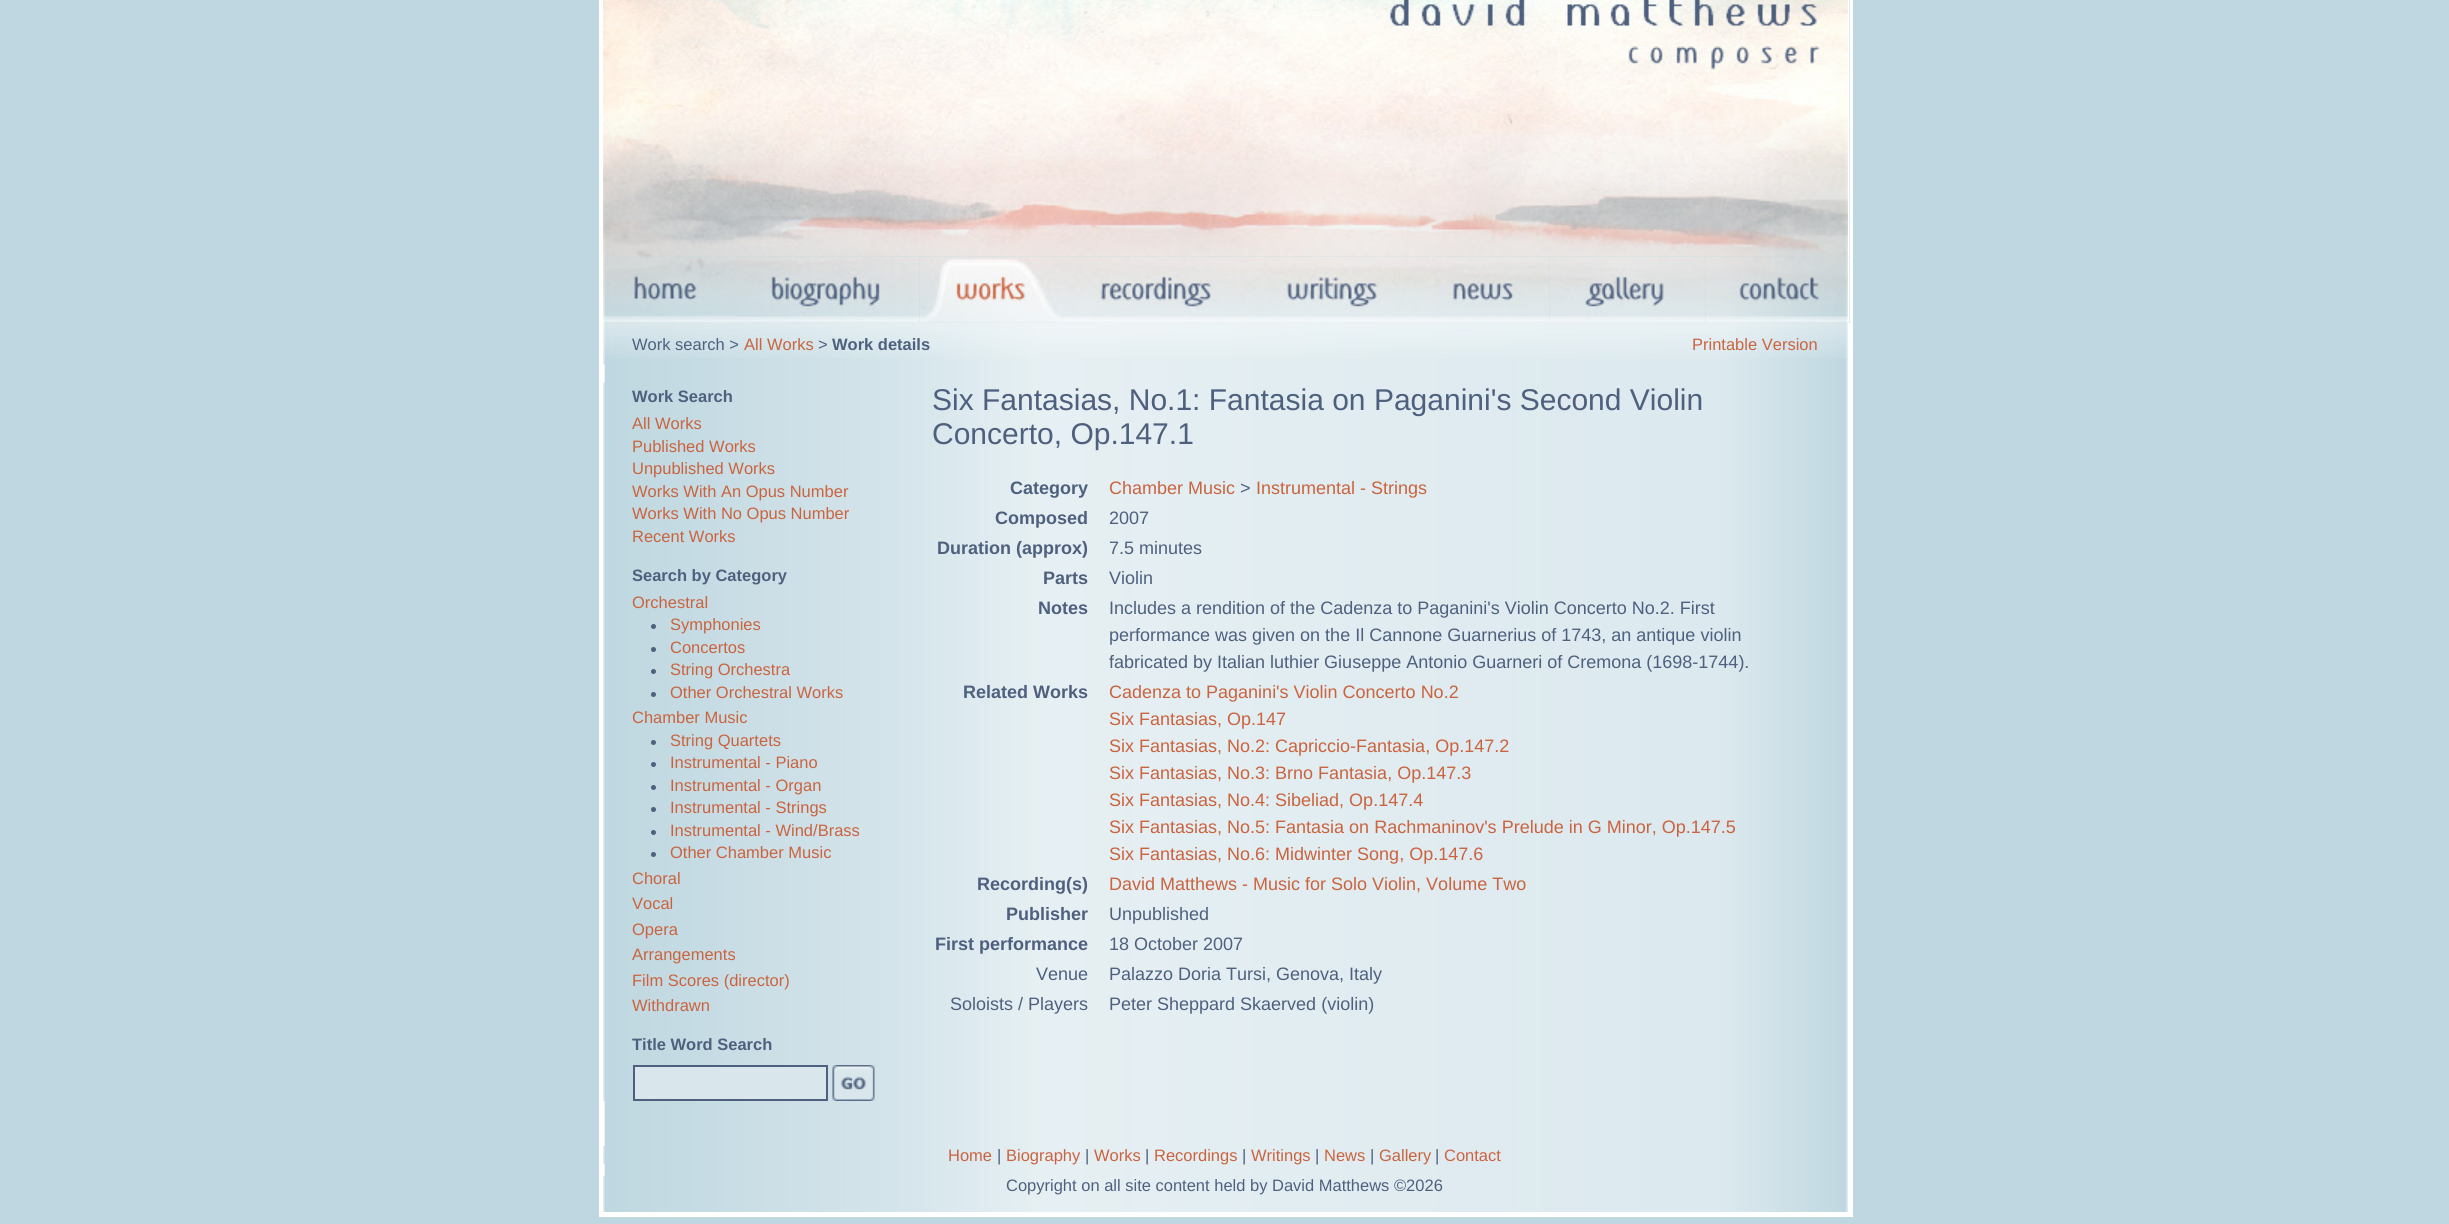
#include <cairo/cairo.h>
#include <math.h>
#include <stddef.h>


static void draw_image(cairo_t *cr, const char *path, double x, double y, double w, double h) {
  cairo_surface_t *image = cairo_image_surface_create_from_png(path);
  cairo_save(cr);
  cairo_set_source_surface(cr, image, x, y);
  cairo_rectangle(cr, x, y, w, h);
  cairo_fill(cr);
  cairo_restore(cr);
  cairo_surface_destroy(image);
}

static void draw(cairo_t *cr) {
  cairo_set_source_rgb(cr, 191 / 255.0, 215 / 255.0, 224 / 255.0);
  cairo_paint(cr);
  cairo_set_source_rgb(cr, 1, 1, 1);
  cairo_rectangle(cr, 1850, 0, 3, 1217);
  cairo_fill(cr);
  cairo_rectangle(cr, 599, 1212, 1254, 5);
  cairo_fill(cr);
  cairo_rectangle(cr, 599, 0, 5, 1217);
  cairo_fill(cr);
  draw_image(cr, "images/1.png", 603, 0, 1245, 257);
  draw_image(cr, "images/2.png", 1848, 0, 2, 257);
  draw_image(cr, "images/12.png", 603, 322, 1245, 890);
  draw_image(cr, "images/13.png", 603, 322, 30, 36);
  draw_image(cr, "images/14.png", 633, 322, 1185, 36);
  draw_image(cr, "images/3.png", 603, 256, 132, 67);
  draw_image(cr, "images/4.png", 735, 256, 185, 67);
  draw_image(cr, "images/5.png", 919, 256, 143, 67);
  draw_image(cr, "images/6.png", 1062, 256, 186, 67);
  draw_image(cr, "images/7.png", 1248, 256, 165, 67);
  draw_image(cr, "images/8.png", 1413, 256, 137, 67);
  draw_image(cr, "images/9.png", 1549, 256, 157, 67);
  draw_image(cr, "images/15.png", 1818, 322, 30, 36);
  draw_image(cr, "images/10.png", 1705, 256, 143, 67);
  draw_image(cr, "images/11.png", 1848, 256, 2, 67);
  draw_image(cr, "images/16.png", 603, 364, 2, 19);
  cairo_set_source_rgb(cr, 78 / 255.0, 96 / 255.0, 126 / 255.0);
  cairo_arc(cr, 653.5, 626.5, 2.5, 0, 2 * M_PI);
  cairo_fill(cr);
  cairo_arc(cr, 653.5, 649.5, 2.5, 0, 2 * M_PI);
  cairo_fill(cr);
  cairo_arc(cr, 653.5, 671.5, 2.5, 0, 2 * M_PI);
  cairo_fill(cr);
  cairo_arc(cr, 653.5, 694.5, 2.5, 0, 2 * M_PI);
  cairo_fill(cr);
  cairo_arc(cr, 653.5, 742.5, 2.5, 0, 2 * M_PI);
  cairo_fill(cr);
  cairo_arc(cr, 653.5, 764.5, 2.5, 0, 2 * M_PI);
  cairo_fill(cr);
  cairo_arc(cr, 653.5, 787.5, 2.5, 0, 2 * M_PI);
  cairo_fill(cr);
  cairo_arc(cr, 653.5, 809.5, 2.5, 0, 2 * M_PI);
  cairo_fill(cr);
  cairo_arc(cr, 653.5, 832.5, 2.5, 0, 2 * M_PI);
  cairo_fill(cr);
  cairo_arc(cr, 653.5, 854.5, 2.5, 0, 2 * M_PI);
  cairo_fill(cr);
  cairo_set_source_rgb(cr, 217 / 255.0, 231 / 255.0, 236 / 255.0);
  cairo_rectangle(cr, 634, 1066, 193, 34);
  cairo_fill_preserve(cr);
  cairo_set_source_rgb(cr, 78 / 255.0, 96 / 255.0, 126 / 255.0);
  cairo_stroke(cr);
  cairo_set_source_rgb(cr, 217 / 255.0, 231 / 255.0, 236 / 255.0);
  cairo_rectangle(cr, 874, 1065, 1, 36);
  cairo_fill(cr);
  draw_image(cr, "images/17.png", 832, 1065, 43, 36);
  draw_image(cr, "images/18.png", 603, 1101, 2, 45);
  draw_image(cr, "images/19.png", 603, 1164, 2, 12);
  cairo_set_source_rgb(cr, 1, 1, 1);
  cairo_rectangle(cr, 1848, 323, 2, 889);
  cairo_fill(cr);
  draw_image(cr, "images/20.png", 1848, 322, 2, 1);
  cairo_select_font_face(cr, "Liberation Sans", CAIRO_FONT_SLANT_NORMAL, CAIRO_FONT_WEIGHT_NORMAL);
  cairo_set_font_size(cr, 16.5);
  cairo_set_source_rgb(cr, 78 / 255.0, 96 / 255.0, 126 / 255.0);
  cairo_move_to(cr, 632, 350);
  cairo_show_text(cr, "Work search >");
  cairo_set_source_rgb(cr, 202 / 255.0, 99 / 255.0, 62 / 255.0);
  cairo_move_to(cr, 744, 350);
  cairo_show_text(cr, "All Works");
  cairo_set_source_rgb(cr, 78 / 255.0, 96 / 255.0, 126 / 255.0);
  cairo_move_to(cr, 818, 350);
  cairo_show_text(cr, ">");
  cairo_select_font_face(cr, "Liberation Sans", CAIRO_FONT_SLANT_NORMAL, CAIRO_FONT_WEIGHT_BOLD);
  cairo_move_to(cr, 832, 350);
  cairo_show_text(cr, "Work details");
  cairo_select_font_face(cr, "Liberation Sans", CAIRO_FONT_SLANT_NORMAL, CAIRO_FONT_WEIGHT_NORMAL);
  cairo_set_source_rgb(cr, 202 / 255.0, 99 / 255.0, 62 / 255.0);
  cairo_move_to(cr, 1692, 350);
  cairo_show_text(cr, "Printable Version");
  cairo_select_font_face(cr, "Liberation Sans", CAIRO_FONT_SLANT_NORMAL, CAIRO_FONT_WEIGHT_BOLD);
  cairo_set_source_rgb(cr, 78 / 255.0, 96 / 255.0, 126 / 255.0);
  cairo_move_to(cr, 632, 402);
  cairo_show_text(cr, "Work Search");
  cairo_select_font_face(cr, "Liberation Sans", CAIRO_FONT_SLANT_NORMAL, CAIRO_FONT_WEIGHT_NORMAL);
  cairo_set_source_rgb(cr, 202 / 255.0, 99 / 255.0, 62 / 255.0);
  cairo_move_to(cr, 632, 429);
  cairo_show_text(cr, "All Works");
  cairo_move_to(cr, 632, 452);
  cairo_show_text(cr, "Published Works");
  cairo_move_to(cr, 632, 474);
  cairo_show_text(cr, "Unpublished Works");
  cairo_move_to(cr, 632, 497);
  cairo_show_text(cr, "Works With An Opus Number");
  cairo_move_to(cr, 632, 519);
  cairo_show_text(cr, "Works With No Opus Number");
  cairo_move_to(cr, 632, 542);
  cairo_show_text(cr, "Recent Works");
  cairo_select_font_face(cr, "Liberation Sans", CAIRO_FONT_SLANT_NORMAL, CAIRO_FONT_WEIGHT_BOLD);
  cairo_set_source_rgb(cr, 78 / 255.0, 96 / 255.0, 126 / 255.0);
  cairo_move_to(cr, 632, 581);
  cairo_show_text(cr, "Search by Category");
  cairo_select_font_face(cr, "Liberation Sans", CAIRO_FONT_SLANT_NORMAL, CAIRO_FONT_WEIGHT_NORMAL);
  cairo_set_source_rgb(cr, 202 / 255.0, 99 / 255.0, 62 / 255.0);
  cairo_move_to(cr, 632, 608);
  cairo_show_text(cr, "Orchestral");
  cairo_move_to(cr, 670, 630);
  cairo_show_text(cr, "Symphonies");
  cairo_move_to(cr, 670, 653);
  cairo_show_text(cr, "Concertos");
  cairo_move_to(cr, 670, 675);
  cairo_show_text(cr, "String Orchestra");
  cairo_move_to(cr, 670, 698);
  cairo_show_text(cr, "Other Orchestral Works");
  cairo_move_to(cr, 632, 723);
  cairo_show_text(cr, "Chamber Music");
  cairo_move_to(cr, 670, 746);
  cairo_show_text(cr, "String Quartets");
  cairo_move_to(cr, 670, 768);
  cairo_show_text(cr, "Instrumental - Piano");
  cairo_move_to(cr, 670, 791);
  cairo_show_text(cr, "Instrumental - Organ");
  cairo_move_to(cr, 670, 813);
  cairo_show_text(cr, "Instrumental - Strings");
  cairo_move_to(cr, 670, 836);
  cairo_show_text(cr, "Instrumental - Wind/Brass");
  cairo_move_to(cr, 670, 858);
  cairo_show_text(cr, "Other Chamber Music");
  cairo_move_to(cr, 632, 884);
  cairo_show_text(cr, "Choral");
  cairo_move_to(cr, 632, 909);
  cairo_show_text(cr, "Vocal");
  cairo_move_to(cr, 632, 935);
  cairo_show_text(cr, "Opera");
  cairo_move_to(cr, 632, 960);
  cairo_show_text(cr, "Arrangements");
  cairo_move_to(cr, 632, 986);
  cairo_show_text(cr, "Film Scores (director)");
  cairo_move_to(cr, 632, 1011);
  cairo_show_text(cr, "Withdrawn");
  cairo_select_font_face(cr, "Liberation Sans", CAIRO_FONT_SLANT_NORMAL, CAIRO_FONT_WEIGHT_BOLD);
  cairo_set_source_rgb(cr, 78 / 255.0, 96 / 255.0, 126 / 255.0);
  cairo_move_to(cr, 632, 1050);
  cairo_show_text(cr, "Title Word Search");
  cairo_select_font_face(cr, "Liberation Sans", CAIRO_FONT_SLANT_NORMAL, CAIRO_FONT_WEIGHT_NORMAL);
  cairo_set_font_size(cr, 30);
  cairo_move_to(cr, 932, 410);
  cairo_show_text(cr, "Six Fantasias, No.1: Fantasia on Paganini's Second Violin");
  cairo_move_to(cr, 932, 444);
  cairo_show_text(cr, "Concerto, Op.147.1");
  cairo_select_font_face(cr, "Liberation Sans", CAIRO_FONT_SLANT_NORMAL, CAIRO_FONT_WEIGHT_BOLD);
  cairo_set_font_size(cr, 18);
  cairo_move_to(cr, 1010, 494);
  cairo_show_text(cr, "Category");
  cairo_select_font_face(cr, "Liberation Sans", CAIRO_FONT_SLANT_NORMAL, CAIRO_FONT_WEIGHT_NORMAL);
  cairo_set_source_rgb(cr, 202 / 255.0, 99 / 255.0, 62 / 255.0);
  cairo_move_to(cr, 1109, 494);
  cairo_show_text(cr, "Chamber Music");
  cairo_set_source_rgb(cr, 78 / 255.0, 96 / 255.0, 126 / 255.0);
  cairo_move_to(cr, 1240, 494);
  cairo_show_text(cr, ">");
  cairo_set_source_rgb(cr, 202 / 255.0, 99 / 255.0, 62 / 255.0);
  cairo_move_to(cr, 1256, 494);
  cairo_show_text(cr, "Instrumental - Strings");
  cairo_select_font_face(cr, "Liberation Sans", CAIRO_FONT_SLANT_NORMAL, CAIRO_FONT_WEIGHT_BOLD);
  cairo_set_source_rgb(cr, 78 / 255.0, 96 / 255.0, 126 / 255.0);
  cairo_move_to(cr, 995, 524);
  cairo_show_text(cr, "Composed");
  cairo_select_font_face(cr, "Liberation Sans", CAIRO_FONT_SLANT_NORMAL, CAIRO_FONT_WEIGHT_NORMAL);
  cairo_move_to(cr, 1109, 524);
  cairo_show_text(cr, "2007");
  cairo_select_font_face(cr, "Liberation Sans", CAIRO_FONT_SLANT_NORMAL, CAIRO_FONT_WEIGHT_BOLD);
  cairo_move_to(cr, 937, 554);
  cairo_show_text(cr, "Duration (approx)");
  cairo_select_font_face(cr, "Liberation Sans", CAIRO_FONT_SLANT_NORMAL, CAIRO_FONT_WEIGHT_NORMAL);
  cairo_move_to(cr, 1109, 554);
  cairo_show_text(cr, "7.5 minutes");
  cairo_select_font_face(cr, "Liberation Sans", CAIRO_FONT_SLANT_NORMAL, CAIRO_FONT_WEIGHT_BOLD);
  cairo_move_to(cr, 1043, 584);
  cairo_show_text(cr, "Parts");
  cairo_select_font_face(cr, "Liberation Sans", CAIRO_FONT_SLANT_NORMAL, CAIRO_FONT_WEIGHT_NORMAL);
  cairo_move_to(cr, 1109, 584);
  cairo_show_text(cr, "Violin");
  cairo_select_font_face(cr, "Liberation Sans", CAIRO_FONT_SLANT_NORMAL, CAIRO_FONT_WEIGHT_BOLD);
  cairo_move_to(cr, 1038, 614);
  cairo_show_text(cr, "Notes");
  cairo_select_font_face(cr, "Liberation Sans", CAIRO_FONT_SLANT_NORMAL, CAIRO_FONT_WEIGHT_NORMAL);
  cairo_move_to(cr, 1109, 614);
  cairo_show_text(cr, "Includes a rendition of the Cadenza to Paganini's Violin Concerto No.2. First");
  cairo_move_to(cr, 1109, 641);
  cairo_show_text(cr, "performance was given on the Il Cannone Guarnerius of 1743, an antique violin");
  cairo_move_to(cr, 1109, 668);
  cairo_show_text(cr, "fabricated by Italian luthier Giuseppe Antonio Guarneri of Cremona (1698-1744).");
  cairo_select_font_face(cr, "Liberation Sans", CAIRO_FONT_SLANT_NORMAL, CAIRO_FONT_WEIGHT_BOLD);
  cairo_move_to(cr, 963, 698);
  cairo_show_text(cr, "Related Works");
  cairo_select_font_face(cr, "Liberation Sans", CAIRO_FONT_SLANT_NORMAL, CAIRO_FONT_WEIGHT_NORMAL);
  cairo_set_source_rgb(cr, 202 / 255.0, 99 / 255.0, 62 / 255.0);
  cairo_move_to(cr, 1109, 698);
  cairo_show_text(cr, "Cadenza to Paganini's Violin Concerto No.2");
  cairo_move_to(cr, 1109, 725);
  cairo_show_text(cr, "Six Fantasias, Op.147");
  cairo_move_to(cr, 1109, 752);
  cairo_show_text(cr, "Six Fantasias, No.2: Capriccio-Fantasia, Op.147.2");
  cairo_move_to(cr, 1109, 779);
  cairo_show_text(cr, "Six Fantasias, No.3: Brno Fantasia, Op.147.3");
  cairo_move_to(cr, 1109, 806);
  cairo_show_text(cr, "Six Fantasias, No.4: Sibeliad, Op.147.4");
  cairo_move_to(cr, 1109, 833);
  cairo_show_text(cr, "Six Fantasias, No.5: Fantasia on Rachmaninov's Prelude in G Minor, Op.147.5");
  cairo_move_to(cr, 1109, 860);
  cairo_show_text(cr, "Six Fantasias, No.6: Midwinter Song, Op.147.6");
  cairo_select_font_face(cr, "Liberation Sans", CAIRO_FONT_SLANT_NORMAL, CAIRO_FONT_WEIGHT_BOLD);
  cairo_set_source_rgb(cr, 78 / 255.0, 96 / 255.0, 126 / 255.0);
  cairo_move_to(cr, 977, 890);
  cairo_show_text(cr, "Recording(s)");
  cairo_select_font_face(cr, "Liberation Sans", CAIRO_FONT_SLANT_NORMAL, CAIRO_FONT_WEIGHT_NORMAL);
  cairo_set_source_rgb(cr, 202 / 255.0, 99 / 255.0, 62 / 255.0);
  cairo_move_to(cr, 1109, 890);
  cairo_show_text(cr, "David Matthews - Music for Solo Violin, Volume Two");
  cairo_select_font_face(cr, "Liberation Sans", CAIRO_FONT_SLANT_NORMAL, CAIRO_FONT_WEIGHT_BOLD);
  cairo_set_source_rgb(cr, 78 / 255.0, 96 / 255.0, 126 / 255.0);
  cairo_move_to(cr, 1006, 920);
  cairo_show_text(cr, "Publisher");
  cairo_select_font_face(cr, "Liberation Sans", CAIRO_FONT_SLANT_NORMAL, CAIRO_FONT_WEIGHT_NORMAL);
  cairo_move_to(cr, 1109, 920);
  cairo_show_text(cr, "Unpublished");
  cairo_select_font_face(cr, "Liberation Sans", CAIRO_FONT_SLANT_NORMAL, CAIRO_FONT_WEIGHT_BOLD);
  cairo_move_to(cr, 935, 950);
  cairo_show_text(cr, "First performance");
  cairo_select_font_face(cr, "Liberation Sans", CAIRO_FONT_SLANT_NORMAL, CAIRO_FONT_WEIGHT_NORMAL);
  cairo_move_to(cr, 1109, 950);
  cairo_show_text(cr, "18 October 2007");
  cairo_move_to(cr, 1036, 980);
  cairo_show_text(cr, "Venue");
  cairo_move_to(cr, 1109, 980);
  cairo_show_text(cr, "Palazzo Doria Tursi, Genova, Italy");
  cairo_move_to(cr, 950, 1010);
  cairo_show_text(cr, "Soloists / Players");
  cairo_move_to(cr, 1109, 1010);
  cairo_show_text(cr, "Peter Sheppard Skaerved (violin)");
  cairo_set_font_size(cr, 16.5);
  cairo_set_source_rgb(cr, 202 / 255.0, 99 / 255.0, 62 / 255.0);
  cairo_move_to(cr, 948, 1161);
  cairo_show_text(cr, "Home");
  cairo_set_source_rgb(cr, 78 / 255.0, 96 / 255.0, 126 / 255.0);
  cairo_move_to(cr, 997, 1161);
  cairo_show_text(cr, "|");
  cairo_set_source_rgb(cr, 202 / 255.0, 99 / 255.0, 62 / 255.0);
  cairo_move_to(cr, 1006, 1161);
  cairo_show_text(cr, "Biography");
  cairo_set_source_rgb(cr, 78 / 255.0, 96 / 255.0, 126 / 255.0);
  cairo_move_to(cr, 1085, 1161);
  cairo_show_text(cr, "|");
  cairo_set_source_rgb(cr, 202 / 255.0, 99 / 255.0, 62 / 255.0);
  cairo_move_to(cr, 1094, 1161);
  cairo_show_text(cr, "Works");
  cairo_set_source_rgb(cr, 78 / 255.0, 96 / 255.0, 126 / 255.0);
  cairo_move_to(cr, 1145, 1161);
  cairo_show_text(cr, "|");
  cairo_set_source_rgb(cr, 202 / 255.0, 99 / 255.0, 62 / 255.0);
  cairo_move_to(cr, 1154, 1161);
  cairo_show_text(cr, "Recordings");
  cairo_set_source_rgb(cr, 78 / 255.0, 96 / 255.0, 126 / 255.0);
  cairo_move_to(cr, 1242, 1161);
  cairo_show_text(cr, "|");
  cairo_set_source_rgb(cr, 202 / 255.0, 99 / 255.0, 62 / 255.0);
  cairo_move_to(cr, 1251, 1161);
  cairo_show_text(cr, "Writings");
  cairo_set_source_rgb(cr, 78 / 255.0, 96 / 255.0, 126 / 255.0);
  cairo_move_to(cr, 1315, 1161);
  cairo_show_text(cr, "|");
  cairo_set_source_rgb(cr, 202 / 255.0, 99 / 255.0, 62 / 255.0);
  cairo_move_to(cr, 1324, 1161);
  cairo_show_text(cr, "News");
  cairo_set_source_rgb(cr, 78 / 255.0, 96 / 255.0, 126 / 255.0);
  cairo_move_to(cr, 1370, 1161);
  cairo_show_text(cr, "|");
  cairo_set_source_rgb(cr, 202 / 255.0, 99 / 255.0, 62 / 255.0);
  cairo_move_to(cr, 1379, 1161);
  cairo_show_text(cr, "Gallery");
  cairo_set_source_rgb(cr, 78 / 255.0, 96 / 255.0, 126 / 255.0);
  cairo_move_to(cr, 1435, 1161);
  cairo_show_text(cr, "|");
  cairo_set_source_rgb(cr, 202 / 255.0, 99 / 255.0, 62 / 255.0);
  cairo_move_to(cr, 1444, 1161);
  cairo_show_text(cr, "Contact");
  cairo_set_source_rgb(cr, 78 / 255.0, 96 / 255.0, 126 / 255.0);
  cairo_move_to(cr, 1006, 1191);
  cairo_show_text(cr, "Copyright on all site content held by David Matthews ©2026");
}

int main(void) {
  cairo_surface_t *surface = cairo_image_surface_create(CAIRO_FORMAT_RGB24, 2449, 1224);
  cairo_t *cr = cairo_create(surface);
  cairo_font_options_t *options = cairo_font_options_create();
  cairo_font_options_set_hint_metrics(options, CAIRO_HINT_METRICS_OFF);
  cairo_font_options_set_hint_style(options, CAIRO_HINT_STYLE_NONE);
  cairo_set_font_options(cr, options);
  cairo_set_miter_limit(cr, 4);
  draw(cr);
  cairo_surface_write_to_png(surface, "out.png");
  cairo_font_options_destroy(options);
  cairo_destroy(cr);
  cairo_surface_destroy(surface);
  return 0;
}
